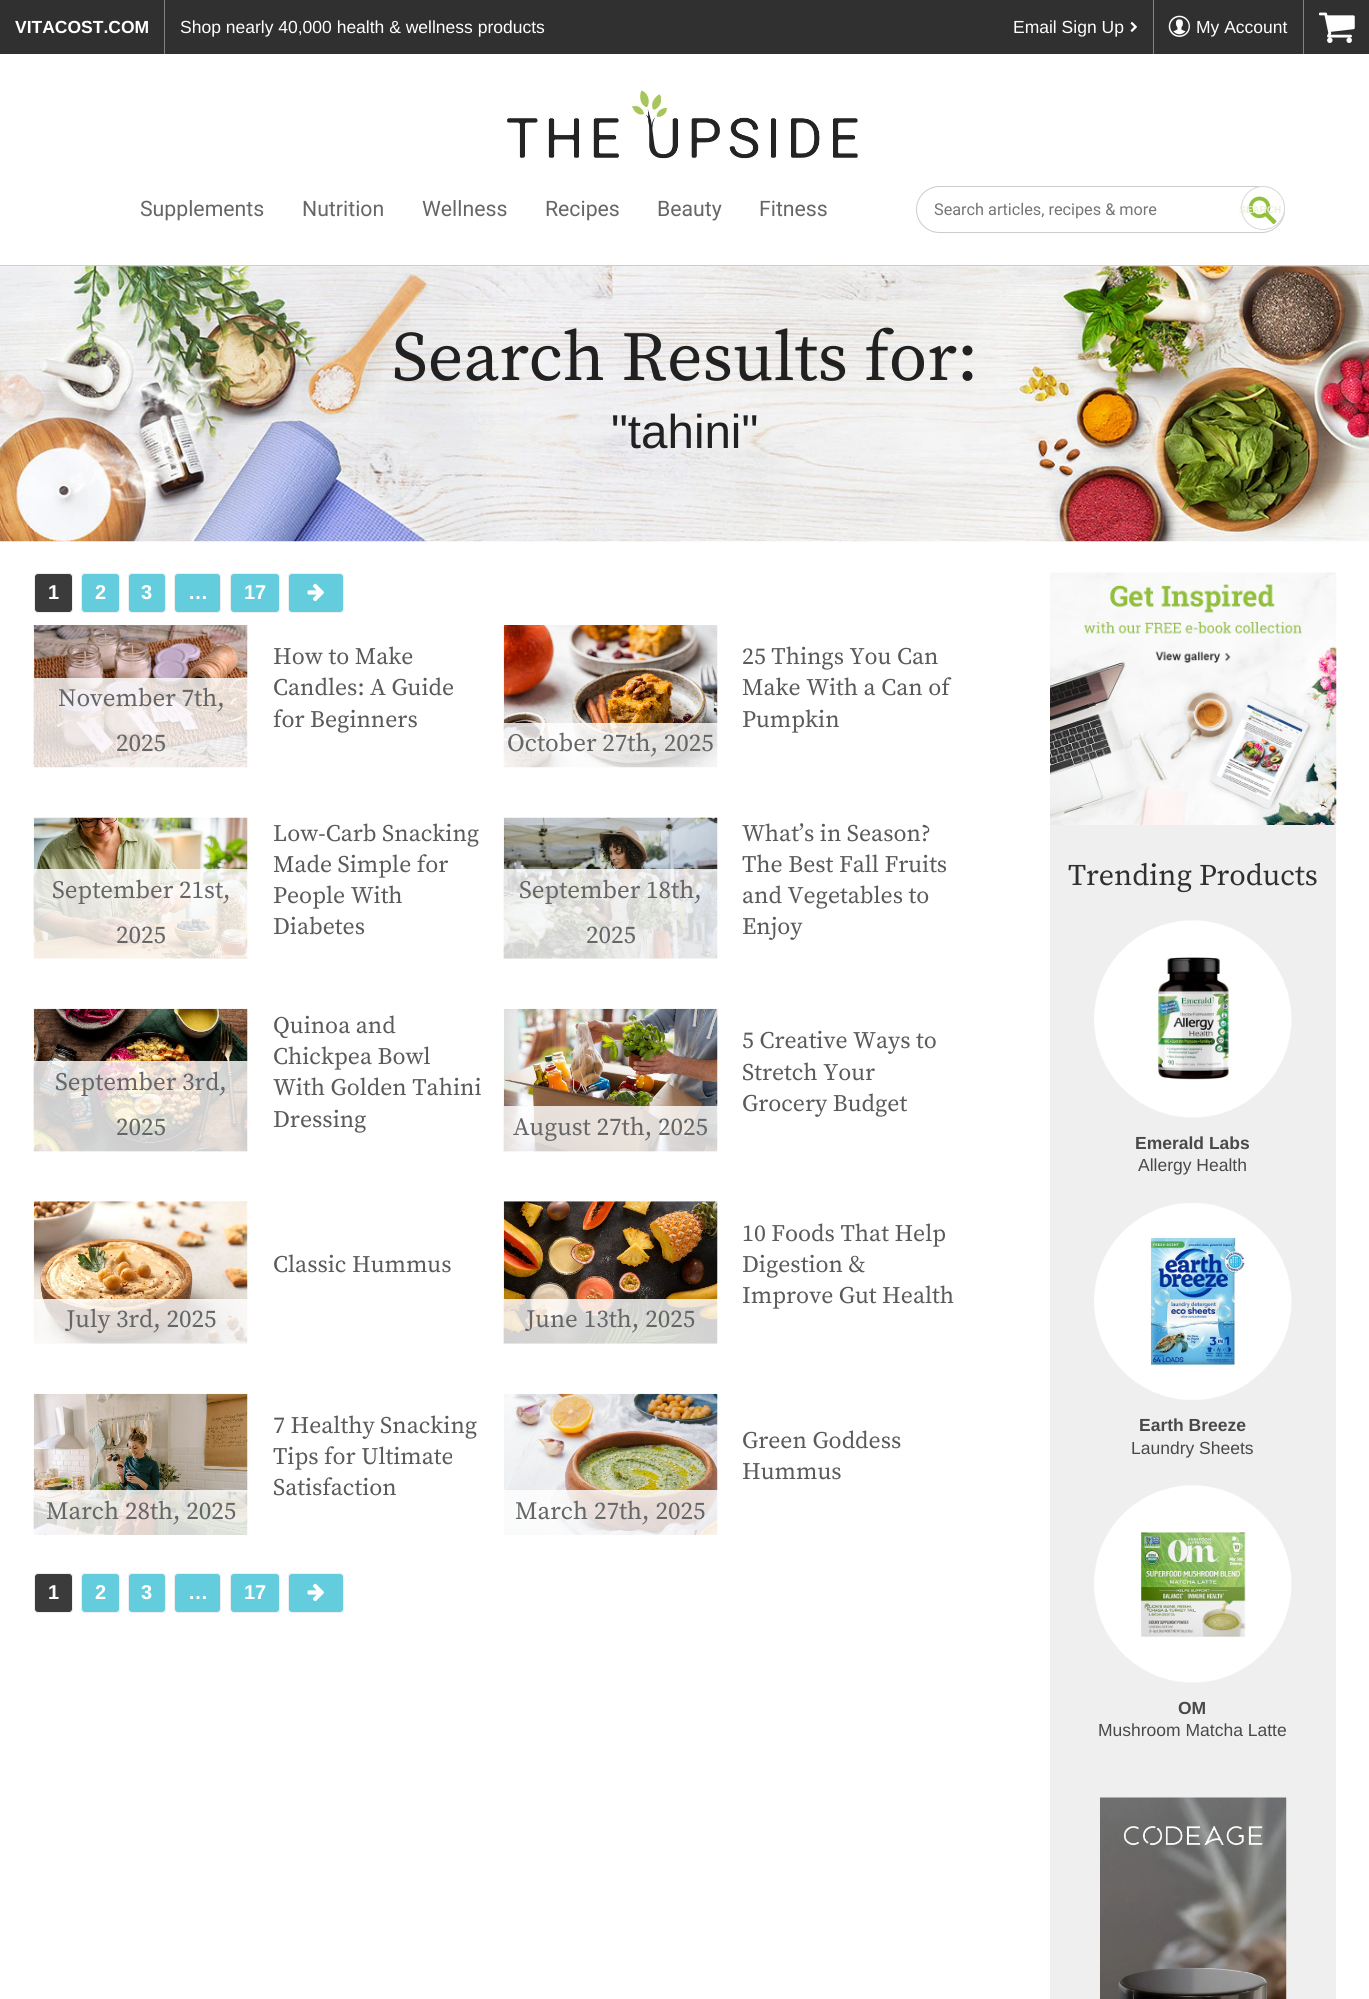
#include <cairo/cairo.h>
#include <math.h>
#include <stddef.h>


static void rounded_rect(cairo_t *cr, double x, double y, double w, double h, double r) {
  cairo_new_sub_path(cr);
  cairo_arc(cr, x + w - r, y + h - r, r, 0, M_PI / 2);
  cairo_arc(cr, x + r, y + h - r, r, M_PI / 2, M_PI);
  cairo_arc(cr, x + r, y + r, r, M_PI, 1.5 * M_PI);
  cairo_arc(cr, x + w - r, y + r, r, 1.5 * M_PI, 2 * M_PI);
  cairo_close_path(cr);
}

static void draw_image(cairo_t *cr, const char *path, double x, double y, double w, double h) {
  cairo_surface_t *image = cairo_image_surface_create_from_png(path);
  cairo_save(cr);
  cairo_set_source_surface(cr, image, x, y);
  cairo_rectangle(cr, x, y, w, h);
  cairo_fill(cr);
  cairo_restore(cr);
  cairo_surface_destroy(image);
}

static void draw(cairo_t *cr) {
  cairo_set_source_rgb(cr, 1, 1, 1);
  cairo_paint(cr);
  cairo_set_source_rgb(cr, 48 / 255.0, 48 / 255.0, 48 / 255.0);
  cairo_rectangle(cr, 0, 0, 1369, 54);
  cairo_fill(cr);
  cairo_set_source_rgb(cr, 131 / 255.0, 131 / 255.0, 131 / 255.0);
  cairo_rectangle(cr, 164, 0, 1, 54);
  cairo_fill(cr);
  draw_image(cr, "images/1.png", 1130, 21, 7, 11);
  cairo_rectangle(cr, 1153, 0, 1, 54);
  cairo_fill(cr);
  draw_image(cr, "images/2.png", 1168, 15, 22, 22);
  cairo_rectangle(cr, 1303, 0, 1, 54);
  cairo_fill(cr);
  draw_image(cr, "images/3.png", 1319, 12, 36, 31);
  cairo_set_source_rgb(cr, 204 / 255.0, 204 / 255.0, 204 / 255.0);
  cairo_rectangle(cr, 0, 265, 1369, 1);
  cairo_fill(cr);
  draw_image(cr, "images/4.png", 507, 90, 351, 69);
  rounded_rect(cr, 916.5, 186.5, 368, 46, 23);
  cairo_set_line_width(cr, 1);
  cairo_stroke(cr);
  cairo_set_source_rgb(cr, 1, 1, 1);
  cairo_arc(cr, 1263, 208, 21.5, 0, 2 * M_PI);
  cairo_fill_preserve(cr);
  cairo_set_source_rgb(cr, 216 / 255.0, 216 / 255.0, 216 / 255.0);
  cairo_stroke(cr);
  draw_image(cr, "images/5.png", 1248, 196, 29, 29);
  draw_image(cr, "images/6.png", 0, 266, 1369, 276);
  cairo_set_source_rgb(cr, 59 / 255.0, 59 / 255.0, 59 / 255.0);
  rounded_rect(cr, 34.5, 573.5, 38, 39, 3.5);
  cairo_fill_preserve(cr);
  cairo_set_source_rgb(cr, 238 / 255.0, 238 / 255.0, 238 / 255.0);
  cairo_stroke(cr);
  cairo_set_source_rgb(cr, 100 / 255.0, 205 / 255.0, 221 / 255.0);
  rounded_rect(cr, 81.5, 573.5, 38, 39, 3.5);
  cairo_fill_preserve(cr);
  cairo_set_source_rgb(cr, 238 / 255.0, 238 / 255.0, 238 / 255.0);
  cairo_stroke(cr);
  cairo_set_source_rgb(cr, 100 / 255.0, 205 / 255.0, 221 / 255.0);
  rounded_rect(cr, 128.5, 573.5, 37, 39, 3.5);
  cairo_fill_preserve(cr);
  cairo_set_source_rgb(cr, 238 / 255.0, 238 / 255.0, 238 / 255.0);
  cairo_stroke(cr);
  cairo_set_source_rgb(cr, 100 / 255.0, 205 / 255.0, 221 / 255.0);
  rounded_rect(cr, 174.5, 573.5, 46, 39, 3.5);
  cairo_fill_preserve(cr);
  cairo_set_source_rgb(cr, 238 / 255.0, 238 / 255.0, 238 / 255.0);
  cairo_stroke(cr);
  cairo_set_source_rgb(cr, 100 / 255.0, 205 / 255.0, 221 / 255.0);
  rounded_rect(cr, 230.5, 573.5, 49, 39, 3.5);
  cairo_fill_preserve(cr);
  cairo_set_source_rgb(cr, 238 / 255.0, 238 / 255.0, 238 / 255.0);
  cairo_stroke(cr);
  cairo_set_source_rgb(cr, 100 / 255.0, 205 / 255.0, 221 / 255.0);
  rounded_rect(cr, 288.5, 573.5, 55, 39, 3.5);
  cairo_fill_preserve(cr);
  cairo_set_source_rgb(cr, 238 / 255.0, 238 / 255.0, 238 / 255.0);
  cairo_stroke(cr);
  draw_image(cr, "images/7.png", 307, 583, 17, 19);
  draw_image(cr, "images/8.png", 33, 625, 215, 143);
  cairo_set_source_rgba(cr, 1, 1, 1, 0.81);
  cairo_rectangle(cr, 34, 678, 214, 90);
  cairo_fill(cr);
  draw_image(cr, "images/9.png", 503, 625, 215, 143);
  cairo_rectangle(cr, 504, 723, 214, 45);
  cairo_fill(cr);
  draw_image(cr, "images/10.png", 33, 817, 215, 142);
  cairo_rectangle(cr, 34, 869, 214, 90);
  cairo_fill(cr);
  draw_image(cr, "images/11.png", 503, 817, 215, 142);
  cairo_rectangle(cr, 504, 869, 214, 90);
  cairo_fill(cr);
  draw_image(cr, "images/12.png", 33, 1008, 215, 144);
  cairo_rectangle(cr, 34, 1061, 214, 90);
  cairo_fill(cr);
  draw_image(cr, "images/13.png", 503, 1008, 215, 144);
  cairo_rectangle(cr, 504, 1106, 214, 45);
  cairo_fill(cr);
  draw_image(cr, "images/14.png", 33, 1201, 215, 143);
  cairo_rectangle(cr, 34, 1299, 214, 45);
  cairo_fill(cr);
  draw_image(cr, "images/15.png", 503, 1201, 215, 143);
  cairo_rectangle(cr, 504, 1299, 214, 45);
  cairo_fill(cr);
  draw_image(cr, "images/16.png", 33, 1393, 215, 142);
  cairo_rectangle(cr, 34, 1490, 214, 45);
  cairo_fill(cr);
  draw_image(cr, "images/17.png", 504, 1393, 214, 142);
  cairo_rectangle(cr, 504, 1490, 214, 45);
  cairo_fill(cr);
  cairo_set_source_rgb(cr, 59 / 255.0, 59 / 255.0, 59 / 255.0);
  rounded_rect(cr, 34.5, 1573.5, 38, 39, 3.5);
  cairo_fill_preserve(cr);
  cairo_set_source_rgb(cr, 238 / 255.0, 238 / 255.0, 238 / 255.0);
  cairo_stroke(cr);
  cairo_set_source_rgb(cr, 100 / 255.0, 205 / 255.0, 221 / 255.0);
  rounded_rect(cr, 81.5, 1573.5, 38, 39, 3.5);
  cairo_fill_preserve(cr);
  cairo_set_source_rgb(cr, 238 / 255.0, 238 / 255.0, 238 / 255.0);
  cairo_stroke(cr);
  cairo_set_source_rgb(cr, 100 / 255.0, 205 / 255.0, 221 / 255.0);
  rounded_rect(cr, 128.5, 1573.5, 37, 39, 3.5);
  cairo_fill_preserve(cr);
  cairo_set_source_rgb(cr, 238 / 255.0, 238 / 255.0, 238 / 255.0);
  cairo_stroke(cr);
  cairo_set_source_rgb(cr, 100 / 255.0, 205 / 255.0, 221 / 255.0);
  rounded_rect(cr, 174.5, 1573.5, 46, 39, 3.5);
  cairo_fill_preserve(cr);
  cairo_set_source_rgb(cr, 238 / 255.0, 238 / 255.0, 238 / 255.0);
  cairo_stroke(cr);
  cairo_set_source_rgb(cr, 100 / 255.0, 205 / 255.0, 221 / 255.0);
  rounded_rect(cr, 230.5, 1573.5, 49, 39, 3.5);
  cairo_fill_preserve(cr);
  cairo_set_source_rgb(cr, 238 / 255.0, 238 / 255.0, 238 / 255.0);
  cairo_stroke(cr);
  cairo_set_source_rgb(cr, 100 / 255.0, 205 / 255.0, 221 / 255.0);
  rounded_rect(cr, 288.5, 1573.5, 55, 39, 3.5);
  cairo_fill_preserve(cr);
  cairo_set_source_rgb(cr, 238 / 255.0, 238 / 255.0, 238 / 255.0);
  cairo_stroke(cr);
  draw_image(cr, "images/7.png", 307, 1583, 17, 19);
  cairo_set_source_rgb(cr, 239 / 255.0, 239 / 255.0, 239 / 255.0);
  cairo_rectangle(cr, 1050, 825, 286, 1174);
  cairo_fill(cr);
  draw_image(cr, "images/18.png", 1050, 572, 287, 253);
  draw_image(cr, "images/19.png", 1094, 920, 198, 198);
  draw_image(cr, "images/20.png", 1094, 1203, 198, 197);
  draw_image(cr, "images/21.png", 1094, 1485, 198, 198);
  draw_image(cr, "images/22.png", 1100, 1797, 187, 202);
  cairo_select_font_face(cr, "Liberation Sans", CAIRO_FONT_SLANT_NORMAL, CAIRO_FONT_WEIGHT_BOLD);
  cairo_set_font_size(cr, 17.5);
  cairo_set_source_rgb(cr, 1, 1, 1);
  cairo_move_to(cr, 15, 33);
  cairo_show_text(cr, "VITACOST.COM");
  cairo_select_font_face(cr, "Liberation Sans", CAIRO_FONT_SLANT_NORMAL, CAIRO_FONT_WEIGHT_NORMAL);
  cairo_move_to(cr, 180, 33);
  cairo_show_text(cr, "Shop nearly 40,000 health & wellness products");
  cairo_move_to(cr, 1013, 33);
  cairo_show_text(cr, "Email Sign Up");
  cairo_move_to(cr, 1196, 33);
  cairo_show_text(cr, "My Account");
  cairo_select_font_face(cr, "Roboto", CAIRO_FONT_SLANT_NORMAL, CAIRO_FONT_WEIGHT_NORMAL);
  cairo_set_font_size(cr, 21.25);
  cairo_set_source_rgb(cr, 102 / 255.0, 102 / 255.0, 102 / 255.0);
  cairo_move_to(cr, 140, 216);
  cairo_show_text(cr, "Supplements");
  cairo_move_to(cr, 302, 216);
  cairo_show_text(cr, "Nutrition");
  cairo_move_to(cr, 422, 216);
  cairo_show_text(cr, "Wellness");
  cairo_move_to(cr, 545, 216);
  cairo_show_text(cr, "Recipes");
  cairo_move_to(cr, 657, 216);
  cairo_show_text(cr, "Beauty");
  cairo_move_to(cr, 759, 216);
  cairo_show_text(cr, "Fitness");
  cairo_set_font_size(cr, 16.25);
  cairo_set_source_rgb(cr, 117 / 255.0, 117 / 255.0, 117 / 255.0);
  cairo_move_to(cr, 934, 215);
  cairo_show_text(cr, "Search articles, recipes & more");
  cairo_select_font_face(cr, "Liberation Sans", CAIRO_FONT_SLANT_NORMAL, CAIRO_FONT_WEIGHT_BOLD);
  cairo_set_font_size(cr, 10);
  cairo_set_source_rgb(cr, 233 / 255.0, 242 / 255.0, 217 / 255.0);
  cairo_move_to(cr, 1239, 213);
  cairo_show_text(cr, "SEARCH");
  cairo_select_font_face(cr, "Source Serif Pro", CAIRO_FONT_SLANT_NORMAL, CAIRO_FONT_WEIGHT_NORMAL);
  cairo_set_font_size(cr, 70);
  cairo_set_source_rgb(cr, 33 / 255.0, 33 / 255.0, 33 / 255.0);
  cairo_move_to(cr, 392, 380);
  cairo_show_text(cr, "Search Results for:");
  cairo_select_font_face(cr, "Liberation Sans", CAIRO_FONT_SLANT_NORMAL, CAIRO_FONT_WEIGHT_NORMAL);
  cairo_set_font_size(cr, 47.5);
  cairo_move_to(cr, 611, 448);
  cairo_show_text(cr, "\"tahini\"");
  cairo_select_font_face(cr, "Liberation Sans", CAIRO_FONT_SLANT_NORMAL, CAIRO_FONT_WEIGHT_BOLD);
  cairo_set_font_size(cr, 20);
  cairo_set_source_rgb(cr, 1, 1, 1);
  cairo_move_to(cr, 48, 599);
  cairo_show_text(cr, "1");
  cairo_move_to(cr, 95, 599);
  cairo_show_text(cr, "2");
  cairo_move_to(cr, 141, 599);
  cairo_show_text(cr, "3");
  cairo_move_to(cr, 188, 599);
  cairo_show_text(cr, "…");
  cairo_move_to(cr, 244, 599);
  cairo_show_text(cr, "17");
  cairo_select_font_face(cr, "Source Serif Pro", CAIRO_FONT_SLANT_NORMAL, CAIRO_FONT_WEIGHT_NORMAL);
  cairo_set_font_size(cr, 25);
  cairo_set_source_rgb(cr, 102 / 255.0, 102 / 255.0, 102 / 255.0);
  cairo_move_to(cr, 58, 706);
  cairo_show_text(cr, "November 7th,");
  cairo_move_to(cr, 116, 751);
  cairo_show_text(cr, "2025");
  cairo_set_font_size(cr, 23.75);
  cairo_set_source_rgb(cr, 90 / 255.0, 90 / 255.0, 90 / 255.0);
  cairo_move_to(cr, 273, 664);
  cairo_show_text(cr, "How to Make");
  cairo_move_to(cr, 273, 695);
  cairo_show_text(cr, "Candles: A Guide");
  cairo_move_to(cr, 273, 727);
  cairo_show_text(cr, "for Beginners");
  cairo_move_to(cr, 742, 664);
  cairo_show_text(cr, "25 Things You Can");
  cairo_move_to(cr, 742, 695);
  cairo_show_text(cr, "Make With a Can of");
  cairo_move_to(cr, 742, 727);
  cairo_show_text(cr, "Pumpkin");
  cairo_set_font_size(cr, 25);
  cairo_set_source_rgb(cr, 102 / 255.0, 102 / 255.0, 102 / 255.0);
  cairo_move_to(cr, 507, 751);
  cairo_show_text(cr, "October 27th, 2025");
  cairo_move_to(cr, 52, 898);
  cairo_show_text(cr, "September 21st,");
  cairo_move_to(cr, 116, 943);
  cairo_show_text(cr, "2025");
  cairo_set_font_size(cr, 23.75);
  cairo_set_source_rgb(cr, 90 / 255.0, 90 / 255.0, 90 / 255.0);
  cairo_move_to(cr, 273, 841);
  cairo_show_text(cr, "Low-Carb Snacking");
  cairo_move_to(cr, 273, 872);
  cairo_show_text(cr, "Made Simple for");
  cairo_move_to(cr, 273, 903);
  cairo_show_text(cr, "People With");
  cairo_move_to(cr, 273, 934);
  cairo_show_text(cr, "Diabetes");
  cairo_set_font_size(cr, 25);
  cairo_set_source_rgb(cr, 102 / 255.0, 102 / 255.0, 102 / 255.0);
  cairo_move_to(cr, 519, 898);
  cairo_show_text(cr, "September 18th,");
  cairo_move_to(cr, 586, 943);
  cairo_show_text(cr, "2025");
  cairo_set_font_size(cr, 23.75);
  cairo_set_source_rgb(cr, 90 / 255.0, 90 / 255.0, 90 / 255.0);
  cairo_move_to(cr, 742, 841);
  cairo_show_text(cr, "What’s in Season?");
  cairo_move_to(cr, 742, 872);
  cairo_show_text(cr, "The Best Fall Fruits");
  cairo_move_to(cr, 742, 903);
  cairo_show_text(cr, "and Vegetables to");
  cairo_move_to(cr, 742, 934);
  cairo_show_text(cr, "Enjoy");
  cairo_set_font_size(cr, 25);
  cairo_set_source_rgb(cr, 102 / 255.0, 102 / 255.0, 102 / 255.0);
  cairo_move_to(cr, 55, 1090);
  cairo_show_text(cr, "September 3rd,");
  cairo_move_to(cr, 116, 1135);
  cairo_show_text(cr, "2025");
  cairo_set_font_size(cr, 23.75);
  cairo_set_source_rgb(cr, 90 / 255.0, 90 / 255.0, 90 / 255.0);
  cairo_move_to(cr, 273, 1033);
  cairo_show_text(cr, "Quinoa and");
  cairo_move_to(cr, 273, 1064);
  cairo_show_text(cr, "Chickpea Bowl");
  cairo_move_to(cr, 273, 1095);
  cairo_show_text(cr, "With Golden Tahini");
  cairo_move_to(cr, 273, 1127);
  cairo_show_text(cr, "Dressing");
  cairo_move_to(cr, 742, 1048);
  cairo_show_text(cr, "5 Creative Ways to");
  cairo_move_to(cr, 742, 1080);
  cairo_show_text(cr, "Stretch Your");
  cairo_move_to(cr, 742, 1111);
  cairo_show_text(cr, "Grocery Budget");
  cairo_set_font_size(cr, 25);
  cairo_set_source_rgb(cr, 102 / 255.0, 102 / 255.0, 102 / 255.0);
  cairo_move_to(cr, 513, 1135);
  cairo_show_text(cr, "August 27th, 2025");
  cairo_set_font_size(cr, 23.75);
  cairo_set_source_rgb(cr, 90 / 255.0, 90 / 255.0, 90 / 255.0);
  cairo_move_to(cr, 273, 1272);
  cairo_show_text(cr, "Classic Hummus");
  cairo_set_font_size(cr, 25);
  cairo_set_source_rgb(cr, 102 / 255.0, 102 / 255.0, 102 / 255.0);
  cairo_move_to(cr, 66, 1327);
  cairo_show_text(cr, "July 3rd, 2025");
  cairo_set_font_size(cr, 23.75);
  cairo_set_source_rgb(cr, 90 / 255.0, 90 / 255.0, 90 / 255.0);
  cairo_move_to(cr, 742, 1241);
  cairo_show_text(cr, "10 Foods That Help");
  cairo_move_to(cr, 742, 1272);
  cairo_show_text(cr, "Digestion &");
  cairo_move_to(cr, 742, 1303);
  cairo_show_text(cr, "Improve Gut Health");
  cairo_set_font_size(cr, 25);
  cairo_set_source_rgb(cr, 102 / 255.0, 102 / 255.0, 102 / 255.0);
  cairo_move_to(cr, 526, 1327);
  cairo_show_text(cr, "June 13th, 2025");
  cairo_set_font_size(cr, 23.75);
  cairo_set_source_rgb(cr, 90 / 255.0, 90 / 255.0, 90 / 255.0);
  cairo_move_to(cr, 273, 1433);
  cairo_show_text(cr, "7 Healthy Snacking");
  cairo_move_to(cr, 273, 1464);
  cairo_show_text(cr, "Tips for Ultimate");
  cairo_move_to(cr, 273, 1495);
  cairo_show_text(cr, "Satisfaction");
  cairo_set_font_size(cr, 25);
  cairo_set_source_rgb(cr, 102 / 255.0, 102 / 255.0, 102 / 255.0);
  cairo_move_to(cr, 46, 1519);
  cairo_show_text(cr, "March 28th, 2025");
  cairo_set_font_size(cr, 23.75);
  cairo_set_source_rgb(cr, 90 / 255.0, 90 / 255.0, 90 / 255.0);
  cairo_move_to(cr, 742, 1448);
  cairo_show_text(cr, "Green Goddess");
  cairo_move_to(cr, 742, 1479);
  cairo_show_text(cr, "Hummus");
  cairo_set_font_size(cr, 25);
  cairo_set_source_rgb(cr, 102 / 255.0, 102 / 255.0, 102 / 255.0);
  cairo_move_to(cr, 515, 1519);
  cairo_show_text(cr, "March 27th, 2025");
  cairo_select_font_face(cr, "Liberation Sans", CAIRO_FONT_SLANT_NORMAL, CAIRO_FONT_WEIGHT_BOLD);
  cairo_set_font_size(cr, 20);
  cairo_set_source_rgb(cr, 1, 1, 1);
  cairo_move_to(cr, 48, 1599);
  cairo_show_text(cr, "1");
  cairo_move_to(cr, 95, 1599);
  cairo_show_text(cr, "2");
  cairo_move_to(cr, 141, 1599);
  cairo_show_text(cr, "3");
  cairo_move_to(cr, 188, 1599);
  cairo_show_text(cr, "…");
  cairo_move_to(cr, 244, 1599);
  cairo_show_text(cr, "17");
  cairo_select_font_face(cr, "Source Serif Pro", CAIRO_FONT_SLANT_NORMAL, CAIRO_FONT_WEIGHT_NORMAL);
  cairo_set_font_size(cr, 30);
  cairo_set_source_rgb(cr, 48 / 255.0, 48 / 255.0, 48 / 255.0);
  cairo_move_to(cr, 1068, 885);
  cairo_show_text(cr, "Trending Products");
  cairo_select_font_face(cr, "Liberation Sans", CAIRO_FONT_SLANT_NORMAL, CAIRO_FONT_WEIGHT_BOLD);
  cairo_set_font_size(cr, 17.5);
  cairo_set_source_rgb(cr, 73 / 255.0, 73 / 255.0, 73 / 255.0);
  cairo_move_to(cr, 1135, 1149);
  cairo_show_text(cr, "Emerald Labs");
  cairo_select_font_face(cr, "Liberation Sans", CAIRO_FONT_SLANT_NORMAL, CAIRO_FONT_WEIGHT_NORMAL);
  cairo_move_to(cr, 1138, 1171);
  cairo_show_text(cr, "Allergy Health");
  cairo_select_font_face(cr, "Liberation Sans", CAIRO_FONT_SLANT_NORMAL, CAIRO_FONT_WEIGHT_BOLD);
  cairo_move_to(cr, 1139, 1431);
  cairo_show_text(cr, "Earth Breeze");
  cairo_select_font_face(cr, "Liberation Sans", CAIRO_FONT_SLANT_NORMAL, CAIRO_FONT_WEIGHT_NORMAL);
  cairo_move_to(cr, 1131, 1454);
  cairo_show_text(cr, "Laundry Sheets");
  cairo_select_font_face(cr, "Liberation Sans", CAIRO_FONT_SLANT_NORMAL, CAIRO_FONT_WEIGHT_BOLD);
  cairo_move_to(cr, 1178, 1714);
  cairo_show_text(cr, "OM");
  cairo_select_font_face(cr, "Liberation Sans", CAIRO_FONT_SLANT_NORMAL, CAIRO_FONT_WEIGHT_NORMAL);
  cairo_move_to(cr, 1098, 1736);
  cairo_show_text(cr, "Mushroom Matcha Latte");
}

int main(void) {
  cairo_surface_t *surface = cairo_image_surface_create(CAIRO_FORMAT_RGB24, 1369, 1999);
  cairo_t *cr = cairo_create(surface);
  cairo_font_options_t *options = cairo_font_options_create();
  cairo_font_options_set_hint_metrics(options, CAIRO_HINT_METRICS_OFF);
  cairo_font_options_set_hint_style(options, CAIRO_HINT_STYLE_NONE);
  cairo_set_font_options(cr, options);
  cairo_set_miter_limit(cr, 4);
  draw(cr);
  cairo_surface_write_to_png(surface, "out.png");
  cairo_font_options_destroy(options);
  cairo_destroy(cr);
  cairo_surface_destroy(surface);
  return 0;
}
